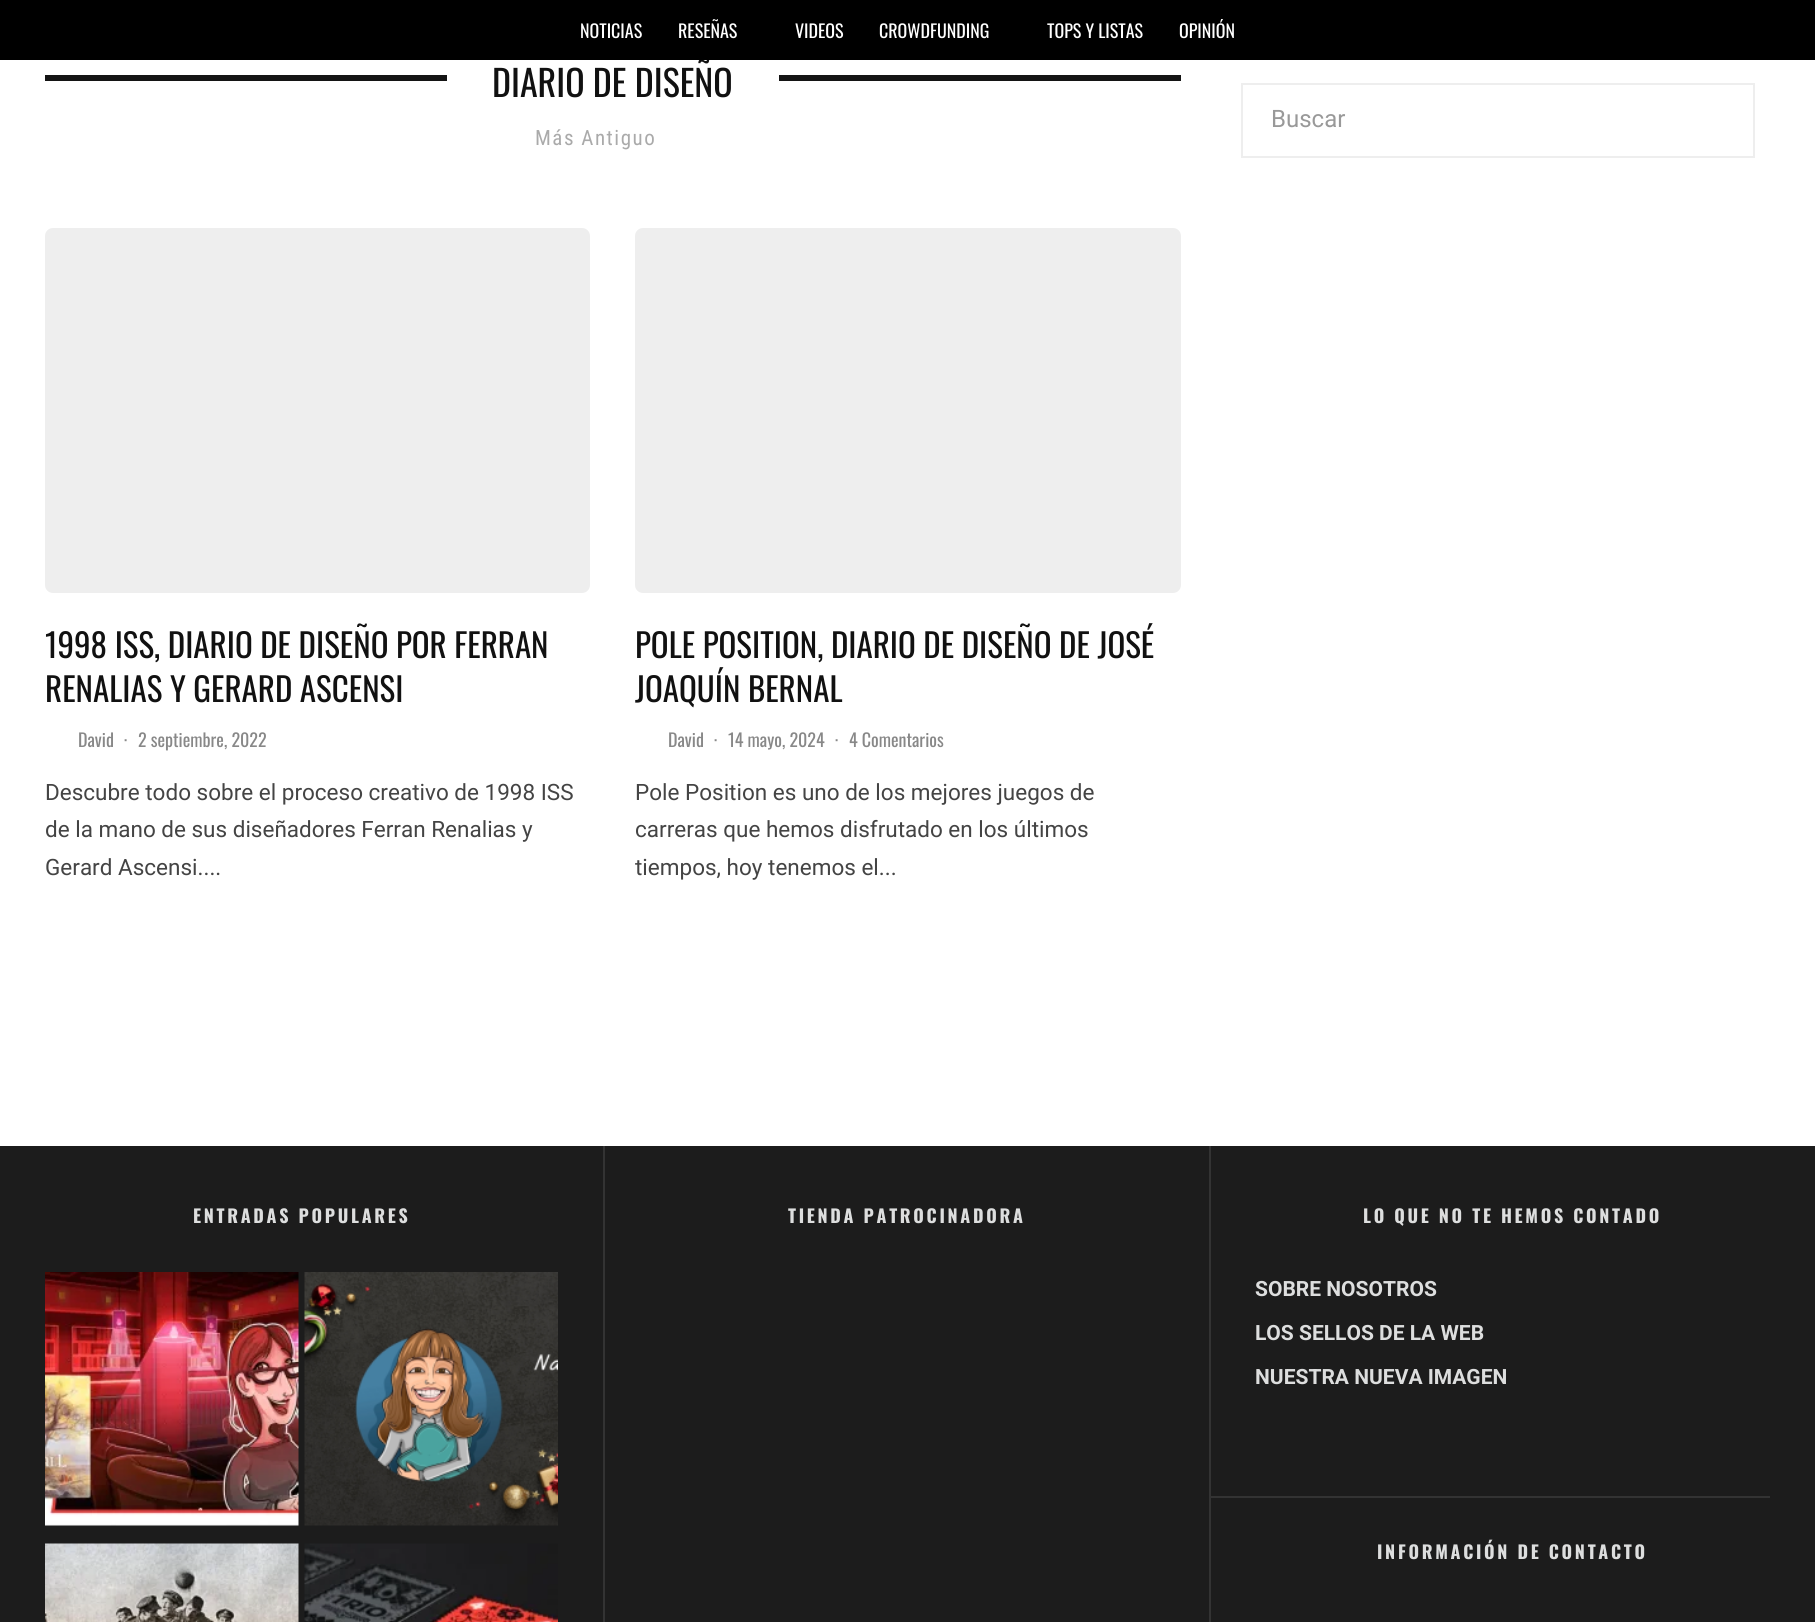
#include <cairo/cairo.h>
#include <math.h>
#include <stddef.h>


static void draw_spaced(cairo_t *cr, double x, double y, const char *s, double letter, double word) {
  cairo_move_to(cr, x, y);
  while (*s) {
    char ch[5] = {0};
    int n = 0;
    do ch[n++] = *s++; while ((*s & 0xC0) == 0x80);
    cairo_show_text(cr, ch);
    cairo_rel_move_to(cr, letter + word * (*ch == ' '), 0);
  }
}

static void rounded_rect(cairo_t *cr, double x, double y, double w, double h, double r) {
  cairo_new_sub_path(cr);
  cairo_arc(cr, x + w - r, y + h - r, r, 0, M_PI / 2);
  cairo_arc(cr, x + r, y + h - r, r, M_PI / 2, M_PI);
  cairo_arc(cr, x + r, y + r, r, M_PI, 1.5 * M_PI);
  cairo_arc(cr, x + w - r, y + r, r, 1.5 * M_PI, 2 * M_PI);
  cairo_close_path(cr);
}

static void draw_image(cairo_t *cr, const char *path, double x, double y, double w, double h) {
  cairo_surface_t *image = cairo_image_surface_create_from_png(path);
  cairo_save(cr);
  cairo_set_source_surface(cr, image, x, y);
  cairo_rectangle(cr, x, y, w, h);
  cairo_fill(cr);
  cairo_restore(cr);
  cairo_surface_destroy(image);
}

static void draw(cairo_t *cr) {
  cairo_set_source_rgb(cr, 1, 1, 1);
  cairo_paint(cr);
  cairo_set_source_rgb(cr, 20 / 255.0, 20 / 255.0, 20 / 255.0);
  cairo_rectangle(cr, 45, 75, 402, 6);
  cairo_fill(cr);
  cairo_rectangle(cr, 779, 75, 402, 6);
  cairo_fill(cr);
  cairo_set_source_rgb(cr, 238 / 255.0, 238 / 255.0, 238 / 255.0);
  rounded_rect(cr, 45, 228, 545, 365, 8);
  cairo_fill(cr);
  rounded_rect(cr, 635, 228, 546, 365, 8);
  cairo_fill(cr);
  cairo_rectangle(cr, 1242, 84, 512, 73);
  cairo_stroke(cr);
  cairo_set_source_rgb(cr, 28 / 255.0, 28 / 255.0, 28 / 255.0);
  cairo_rectangle(cr, 0, 1146, 1815, 476);
  cairo_fill(cr);
  cairo_set_source_rgb(cr, 51 / 255.0, 51 / 255.0, 51 / 255.0);
  cairo_rectangle(cr, 603, 1146, 2, 476);
  cairo_fill(cr);
  draw_image(cr, "images/1.png", 45, 1272, 254, 254);
  draw_image(cr, "images/2.png", 304, 1272, 254, 254);
  draw_image(cr, "images/3.png", 45, 1543, 254, 79);
  draw_image(cr, "images/4.png", 304, 1543, 254, 79);
  cairo_rectangle(cr, 1209, 1146, 2, 476);
  cairo_fill(cr);
  cairo_rectangle(cr, 1211, 1496, 559, 2);
  cairo_fill(cr);
  cairo_select_font_face(cr, "Oswald", CAIRO_FONT_SLANT_NORMAL, CAIRO_FONT_WEIGHT_NORMAL);
  cairo_set_font_size(cr, 36);
  cairo_set_source_rgb(cr, 17 / 255.0, 17 / 255.0, 17 / 255.0);
  cairo_move_to(cr, 492, 97);
  cairo_show_text(cr, "DIARIO DE DISEÑO");
  cairo_set_source_rgb(cr, 0, 0, 0);
  cairo_rectangle(cr, 0, 0, 1815, 60);
  cairo_fill(cr);
  cairo_set_font_size(cr, 18);
  cairo_set_source_rgb(cr, 1, 1, 1);
  cairo_move_to(cr, 1179, 38);
  cairo_show_text(cr, "OPINIÓN");
  cairo_move_to(cr, 1047, 38);
  cairo_show_text(cr, "TOPS Y LISTAS");
  cairo_move_to(cr, 879, 38);
  cairo_show_text(cr, "CROWDFUNDING");
  cairo_move_to(cr, 795, 38);
  cairo_show_text(cr, "VIDEOS");
  cairo_move_to(cr, 678, 38);
  cairo_show_text(cr, "RESEÑAS");
  cairo_move_to(cr, 580, 38);
  cairo_show_text(cr, "NOTICIAS");
  cairo_select_font_face(cr, "Roboto Condensed", CAIRO_FONT_SLANT_NORMAL, CAIRO_FONT_WEIGHT_NORMAL);
  cairo_set_font_size(cr, 21);
  cairo_set_source_rgb(cr, 170 / 255.0, 170 / 255.0, 170 / 255.0);
  draw_spaced(cr, 535, 145, "Más Antiguo", 1.5, 0);
  cairo_select_font_face(cr, "Oswald", CAIRO_FONT_SLANT_NORMAL, CAIRO_FONT_WEIGHT_NORMAL);
  cairo_set_font_size(cr, 33);
  cairo_set_source_rgb(cr, 17 / 255.0, 17 / 255.0, 17 / 255.0);
  cairo_move_to(cr, 45, 658);
  cairo_show_text(cr, "1998 ISS, DIARIO DE DISEÑO POR FERRAN");
  cairo_move_to(cr, 45, 702);
  cairo_show_text(cr, "RENALIAS Y GERARD ASCENSI");
  cairo_set_font_size(cr, 18);
  cairo_set_source_rgb(cr, 136 / 255.0, 136 / 255.0, 136 / 255.0);
  cairo_move_to(cr, 78, 747);
  cairo_show_text(cr, "David");
  cairo_move_to(cr, 124, 747);
  cairo_show_text(cr, "·");
  cairo_move_to(cr, 138, 747);
  cairo_show_text(cr, "2 septiembre, 2022");
  cairo_select_font_face(cr, "Roboto", CAIRO_FONT_SLANT_NORMAL, CAIRO_FONT_WEIGHT_NORMAL);
  cairo_set_font_size(cr, 22.5);
  cairo_set_source_rgb(cr, 68 / 255.0, 68 / 255.0, 68 / 255.0);
  cairo_move_to(cr, 45, 800);
  cairo_show_text(cr, "Descubre todo sobre el proceso creativo de 1998 ISS");
  cairo_move_to(cr, 45, 837);
  cairo_show_text(cr, "de la mano de sus diseñadores Ferran Renalias y");
  cairo_move_to(cr, 45, 875);
  cairo_show_text(cr, "Gerard Ascensi....");
  cairo_select_font_face(cr, "Oswald", CAIRO_FONT_SLANT_NORMAL, CAIRO_FONT_WEIGHT_NORMAL);
  cairo_set_font_size(cr, 33);
  cairo_set_source_rgb(cr, 17 / 255.0, 17 / 255.0, 17 / 255.0);
  cairo_move_to(cr, 635, 658);
  cairo_show_text(cr, "POLE POSITION, DIARIO DE DISEÑO DE JOSÉ");
  cairo_move_to(cr, 635, 702);
  cairo_show_text(cr, "JOAQUÍN BERNAL");
  cairo_set_font_size(cr, 18);
  cairo_set_source_rgb(cr, 136 / 255.0, 136 / 255.0, 136 / 255.0);
  cairo_move_to(cr, 668, 747);
  cairo_show_text(cr, "David");
  cairo_move_to(cr, 714, 747);
  cairo_show_text(cr, "·");
  cairo_move_to(cr, 728, 747);
  cairo_show_text(cr, "14 mayo, 2024");
  cairo_move_to(cr, 835, 747);
  cairo_show_text(cr, "·");
  cairo_move_to(cr, 849, 747);
  cairo_show_text(cr, "4 Comentarios");
  cairo_select_font_face(cr, "Roboto", CAIRO_FONT_SLANT_NORMAL, CAIRO_FONT_WEIGHT_NORMAL);
  cairo_set_font_size(cr, 22.5);
  cairo_set_source_rgb(cr, 68 / 255.0, 68 / 255.0, 68 / 255.0);
  cairo_move_to(cr, 635, 800);
  cairo_show_text(cr, "Pole Position es uno de los mejores juegos de");
  cairo_move_to(cr, 635, 837);
  cairo_show_text(cr, "carreras que hemos disfrutado en los últimos");
  cairo_move_to(cr, 635, 875);
  cairo_show_text(cr, "tiempos, hoy tenemos el...");
  cairo_set_font_size(cr, 24);
  cairo_set_source_rgb(cr, 153 / 255.0, 153 / 255.0, 153 / 255.0);
  cairo_move_to(cr, 1271, 127);
  cairo_show_text(cr, "Buscar");
  cairo_select_font_face(cr, "Oswald", CAIRO_FONT_SLANT_NORMAL, CAIRO_FONT_WEIGHT_BOLD);
  cairo_set_font_size(cr, 18);
  cairo_set_source_rgb(cr, 221 / 255.0, 222 / 255.0, 222 / 255.0);
  draw_spaced(cr, 193, 1223, "ENTRADAS POPULARES", 2.7, 0);
  draw_spaced(cr, 788, 1223, "TIENDA PATROCINADORA", 2.7, 0);
  draw_spaced(cr, 1363, 1223, "LO QUE NO TE HEMOS CONTADO", 2.7, 0);
  cairo_select_font_face(cr, "Roboto", CAIRO_FONT_SLANT_NORMAL, CAIRO_FONT_WEIGHT_BOLD);
  cairo_set_font_size(cr, 21);
  cairo_move_to(cr, 1255, 1296);
  cairo_show_text(cr, "SOBRE NOSOTROS");
  cairo_move_to(cr, 1255, 1340);
  cairo_show_text(cr, "LOS SELLOS DE LA WEB");
  cairo_move_to(cr, 1255, 1384);
  cairo_show_text(cr, "NUESTRA NUEVA IMAGEN");
  cairo_select_font_face(cr, "Oswald", CAIRO_FONT_SLANT_NORMAL, CAIRO_FONT_WEIGHT_BOLD);
  cairo_set_font_size(cr, 18);
  draw_spaced(cr, 1377, 1559, "INFORMACIÓN DE CONTACTO", 2.7, 0);
}

int main(void) {
  cairo_surface_t *surface = cairo_image_surface_create(CAIRO_FORMAT_RGB24, 1815, 1622);
  cairo_t *cr = cairo_create(surface);
  cairo_font_options_t *options = cairo_font_options_create();
  cairo_font_options_set_hint_metrics(options, CAIRO_HINT_METRICS_OFF);
  cairo_font_options_set_hint_style(options, CAIRO_HINT_STYLE_NONE);
  cairo_set_font_options(cr, options);
  cairo_set_miter_limit(cr, 4);
  draw(cr);
  cairo_surface_write_to_png(surface, "out.png");
  cairo_font_options_destroy(options);
  cairo_destroy(cr);
  cairo_surface_destroy(surface);
  return 0;
}
